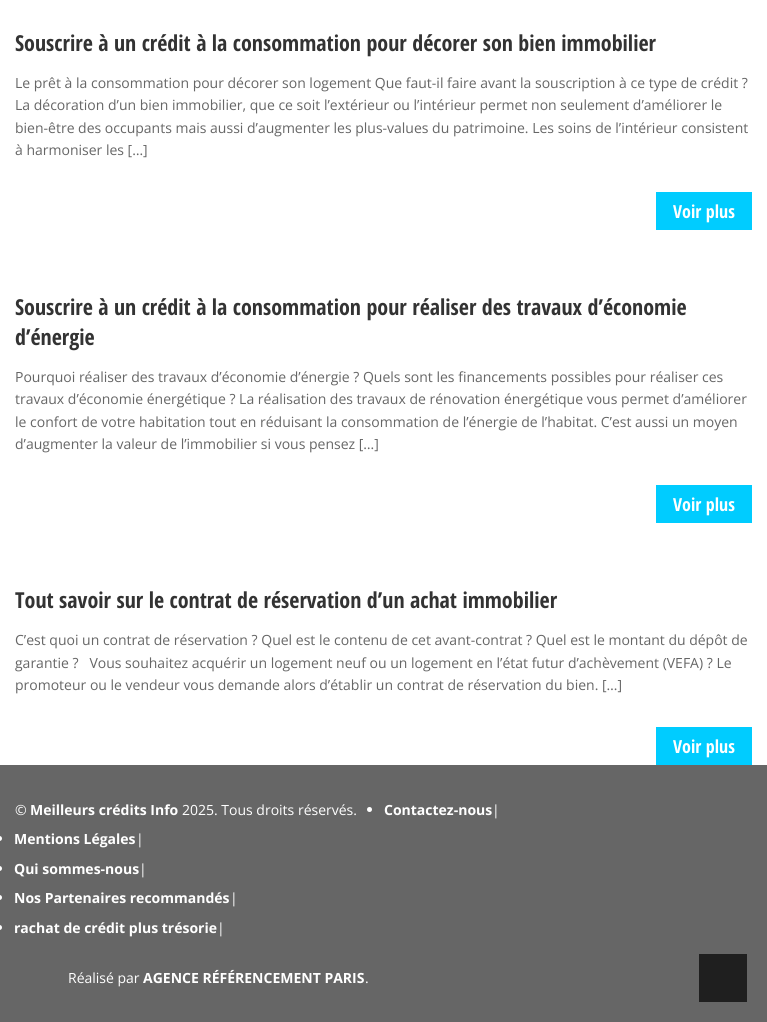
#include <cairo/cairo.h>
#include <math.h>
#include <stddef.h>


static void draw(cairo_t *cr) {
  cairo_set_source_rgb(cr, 1, 1, 1);
  cairo_paint(cr);
  cairo_set_source_rgb(cr, 0, 204 / 255.0, 1);
  cairo_rectangle(cr, 656, 192, 96, 38);
  cairo_fill(cr);
  cairo_rectangle(cr, 656, 485, 96, 38);
  cairo_fill(cr);
  cairo_rectangle(cr, 656, 727, 96, 38);
  cairo_fill(cr);
  cairo_set_source_rgb(cr, 102 / 255.0, 102 / 255.0, 102 / 255.0);
  cairo_rectangle(cr, 0, 765, 767, 257);
  cairo_fill(cr);
  cairo_set_source_rgb(cr, 1, 1, 1);
  cairo_arc(cr, 369.5, 809.5, 2.5, 0, 2 * M_PI);
  cairo_fill(cr);
  cairo_arc(cr, -0.5, 838.5, 2.5, 0, 2 * M_PI);
  cairo_fill(cr);
  cairo_arc(cr, -0.5, 868.5, 2.5, 0, 2 * M_PI);
  cairo_fill(cr);
  cairo_arc(cr, -0.5, 897.5, 2.5, 0, 2 * M_PI);
  cairo_fill(cr);
  cairo_arc(cr, -0.5, 927.5, 2.5, 0, 2 * M_PI);
  cairo_fill(cr);
  cairo_set_source_rgb(cr, 31 / 255.0, 31 / 255.0, 31 / 255.0);
  cairo_rectangle(cr, 699, 954, 48, 48);
  cairo_fill(cr);
  cairo_select_font_face(cr, "Open Sans Condensed", CAIRO_FONT_SLANT_NORMAL, CAIRO_FONT_WEIGHT_BOLD);
  cairo_set_font_size(cr, 22);
  cairo_set_source_rgb(cr, 51 / 255.0, 51 / 255.0, 51 / 255.0);
  cairo_move_to(cr, 15, 51);
  cairo_show_text(cr, "Souscrire à un crédit à la consommation pour décorer son bien immobilier");
  cairo_select_font_face(cr, "Open Sans", CAIRO_FONT_SLANT_NORMAL, CAIRO_FONT_WEIGHT_NORMAL);
  cairo_set_font_size(cr, 14);
  cairo_set_source_rgb(cr, 102 / 255.0, 102 / 255.0, 102 / 255.0);
  cairo_move_to(cr, 15, 88);
  cairo_show_text(cr, "Le prêt à la consommation pour décorer son logement Que faut-il faire avant la souscription à ce type de crédit ?");
  cairo_move_to(cr, 15, 110);
  cairo_show_text(cr, "La décoration d’un bien immobilier, que ce soit l’extérieur ou l’intérieur permet non seulement d’améliorer le");
  cairo_move_to(cr, 15, 133);
  cairo_show_text(cr, "bien-être des occupants mais aussi d’augmenter les plus-values du patrimoine. Les soins de l’intérieur consistent");
  cairo_move_to(cr, 15, 155);
  cairo_show_text(cr, "à harmoniser les […]");
  cairo_select_font_face(cr, "Open Sans Condensed", CAIRO_FONT_SLANT_NORMAL, CAIRO_FONT_WEIGHT_BOLD);
  cairo_set_font_size(cr, 18);
  cairo_set_source_rgb(cr, 1, 1, 1);
  cairo_move_to(cr, 673, 218);
  cairo_show_text(cr, "Voir plus");
  cairo_set_font_size(cr, 22);
  cairo_set_source_rgb(cr, 51 / 255.0, 51 / 255.0, 51 / 255.0);
  cairo_move_to(cr, 15, 315);
  cairo_show_text(cr, "Souscrire à un crédit à la consommation pour réaliser des travaux d’économie");
  cairo_move_to(cr, 15, 345);
  cairo_show_text(cr, "d’énergie");
  cairo_select_font_face(cr, "Open Sans", CAIRO_FONT_SLANT_NORMAL, CAIRO_FONT_WEIGHT_NORMAL);
  cairo_set_font_size(cr, 14);
  cairo_set_source_rgb(cr, 102 / 255.0, 102 / 255.0, 102 / 255.0);
  cairo_move_to(cr, 15, 382);
  cairo_show_text(cr, "Pourquoi réaliser des travaux d’économie d’énergie ? Quels sont les financements possibles pour réaliser ces");
  cairo_move_to(cr, 15, 404);
  cairo_show_text(cr, "travaux d’économie énergétique ? La réalisation des travaux de rénovation énergétique vous permet d’améliorer");
  cairo_move_to(cr, 15, 427);
  cairo_show_text(cr, "le confort de votre habitation tout en réduisant la consommation de l’énergie de l’habitat. C’est aussi un moyen");
  cairo_move_to(cr, 15, 449);
  cairo_show_text(cr, "d’augmenter la valeur de l’immobilier si vous pensez […]");
  cairo_select_font_face(cr, "Open Sans Condensed", CAIRO_FONT_SLANT_NORMAL, CAIRO_FONT_WEIGHT_BOLD);
  cairo_set_font_size(cr, 18);
  cairo_set_source_rgb(cr, 1, 1, 1);
  cairo_move_to(cr, 673, 511);
  cairo_show_text(cr, "Voir plus");
  cairo_set_font_size(cr, 22);
  cairo_set_source_rgb(cr, 51 / 255.0, 51 / 255.0, 51 / 255.0);
  cairo_move_to(cr, 15, 608);
  cairo_show_text(cr, "Tout savoir sur le contrat de réservation d’un achat immobilier");
  cairo_select_font_face(cr, "Open Sans", CAIRO_FONT_SLANT_NORMAL, CAIRO_FONT_WEIGHT_NORMAL);
  cairo_set_font_size(cr, 14);
  cairo_set_source_rgb(cr, 102 / 255.0, 102 / 255.0, 102 / 255.0);
  cairo_move_to(cr, 15, 645);
  cairo_show_text(cr, "C’est quoi un contrat de réservation ? Quel est le contenu de cet avant-contrat ? Quel est le montant du dépôt de");
  cairo_move_to(cr, 15, 668);
  cairo_show_text(cr, "garantie ?   Vous souhaitez acquérir un logement neuf ou un logement en l’état futur d’achèvement (VEFA) ? Le");
  cairo_move_to(cr, 15, 690);
  cairo_show_text(cr, "promoteur ou le vendeur vous demande alors d’établir un contrat de réservation du bien. […]");
  cairo_select_font_face(cr, "Open Sans Condensed", CAIRO_FONT_SLANT_NORMAL, CAIRO_FONT_WEIGHT_BOLD);
  cairo_set_font_size(cr, 18);
  cairo_set_source_rgb(cr, 1, 1, 1);
  cairo_move_to(cr, 673, 753);
  cairo_show_text(cr, "Voir plus");
  cairo_select_font_face(cr, "Open Sans", CAIRO_FONT_SLANT_NORMAL, CAIRO_FONT_WEIGHT_BOLD);
  cairo_set_font_size(cr, 14);
  cairo_move_to(cr, 384, 815);
  cairo_show_text(cr, "Contactez-nous");
  cairo_select_font_face(cr, "Open Sans", CAIRO_FONT_SLANT_NORMAL, CAIRO_FONT_WEIGHT_NORMAL);
  cairo_move_to(cr, 492, 815);
  cairo_show_text(cr, "|");
  cairo_select_font_face(cr, "Open Sans", CAIRO_FONT_SLANT_NORMAL, CAIRO_FONT_WEIGHT_BOLD);
  cairo_move_to(cr, 14, 844);
  cairo_show_text(cr, "Mentions Légales");
  cairo_select_font_face(cr, "Open Sans", CAIRO_FONT_SLANT_NORMAL, CAIRO_FONT_WEIGHT_NORMAL);
  cairo_move_to(cr, 136, 844);
  cairo_show_text(cr, "|");
  cairo_select_font_face(cr, "Open Sans", CAIRO_FONT_SLANT_NORMAL, CAIRO_FONT_WEIGHT_BOLD);
  cairo_move_to(cr, 14, 874);
  cairo_show_text(cr, "Qui sommes-nous");
  cairo_select_font_face(cr, "Open Sans", CAIRO_FONT_SLANT_NORMAL, CAIRO_FONT_WEIGHT_NORMAL);
  cairo_move_to(cr, 139, 874);
  cairo_show_text(cr, "|");
  cairo_select_font_face(cr, "Open Sans", CAIRO_FONT_SLANT_NORMAL, CAIRO_FONT_WEIGHT_BOLD);
  cairo_move_to(cr, 14, 903);
  cairo_show_text(cr, "Nos Partenaires recommandés");
  cairo_select_font_face(cr, "Open Sans", CAIRO_FONT_SLANT_NORMAL, CAIRO_FONT_WEIGHT_NORMAL);
  cairo_move_to(cr, 230, 903);
  cairo_show_text(cr, "|");
  cairo_select_font_face(cr, "Open Sans", CAIRO_FONT_SLANT_NORMAL, CAIRO_FONT_WEIGHT_BOLD);
  cairo_move_to(cr, 14, 933);
  cairo_show_text(cr, "rachat de crédit plus trésorie");
  cairo_select_font_face(cr, "Open Sans", CAIRO_FONT_SLANT_NORMAL, CAIRO_FONT_WEIGHT_NORMAL);
  cairo_move_to(cr, 217, 933);
  cairo_show_text(cr, "|");
  cairo_move_to(cr, 68, 983);
  cairo_show_text(cr, "Réalisé par");
  cairo_select_font_face(cr, "Open Sans", CAIRO_FONT_SLANT_NORMAL, CAIRO_FONT_WEIGHT_BOLD);
  cairo_move_to(cr, 143, 983);
  cairo_show_text(cr, "AGENCE RÉFÉRENCEMENT PARIS");
  cairo_select_font_face(cr, "Open Sans", CAIRO_FONT_SLANT_NORMAL, CAIRO_FONT_WEIGHT_NORMAL);
  cairo_move_to(cr, 365, 983);
  cairo_show_text(cr, ".");
  cairo_move_to(cr, 15, 815);
  cairo_show_text(cr, "©");
  cairo_select_font_face(cr, "Open Sans", CAIRO_FONT_SLANT_NORMAL, CAIRO_FONT_WEIGHT_BOLD);
  cairo_move_to(cr, 30, 815);
  cairo_show_text(cr, "Meilleurs crédits Info");
  cairo_select_font_face(cr, "Open Sans", CAIRO_FONT_SLANT_NORMAL, CAIRO_FONT_WEIGHT_NORMAL);
  cairo_move_to(cr, 182, 815);
  cairo_show_text(cr, "2025. Tous droits réservés.");
}

int main(void) {
  cairo_surface_t *surface = cairo_image_surface_create(CAIRO_FORMAT_RGB24, 767, 1022);
  cairo_t *cr = cairo_create(surface);
  cairo_font_options_t *options = cairo_font_options_create();
  cairo_font_options_set_hint_metrics(options, CAIRO_HINT_METRICS_OFF);
  cairo_font_options_set_hint_style(options, CAIRO_HINT_STYLE_NONE);
  cairo_set_font_options(cr, options);
  cairo_set_miter_limit(cr, 4);
  draw(cr);
  cairo_surface_write_to_png(surface, "out.png");
  cairo_font_options_destroy(options);
  cairo_destroy(cr);
  cairo_surface_destroy(surface);
  return 0;
}
